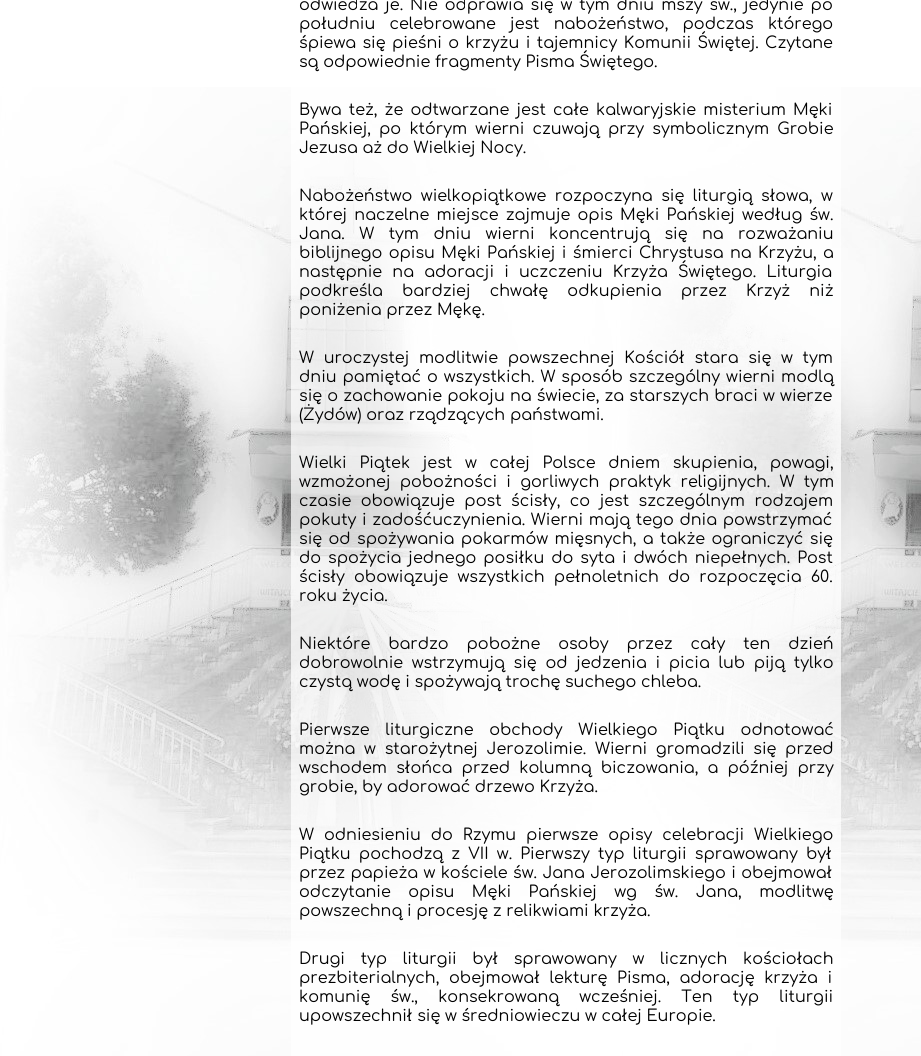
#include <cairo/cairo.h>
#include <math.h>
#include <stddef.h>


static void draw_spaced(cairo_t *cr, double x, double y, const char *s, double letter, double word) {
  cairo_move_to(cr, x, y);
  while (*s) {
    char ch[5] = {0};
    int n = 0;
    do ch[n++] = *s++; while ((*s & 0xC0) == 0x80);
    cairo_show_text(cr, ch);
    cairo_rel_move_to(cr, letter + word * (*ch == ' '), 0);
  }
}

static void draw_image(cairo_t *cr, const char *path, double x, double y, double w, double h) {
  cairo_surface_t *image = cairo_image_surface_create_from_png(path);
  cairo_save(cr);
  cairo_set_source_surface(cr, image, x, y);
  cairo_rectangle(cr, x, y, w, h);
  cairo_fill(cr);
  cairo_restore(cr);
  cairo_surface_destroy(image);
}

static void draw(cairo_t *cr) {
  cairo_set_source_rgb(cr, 1, 1, 1);
  cairo_paint(cr);
  draw_image(cr, "images/1.png", 0, 87, 921, 969);
  cairo_set_source_rgba(cr, 1, 1, 1, 0.74);
  cairo_rectangle(cr, 291, 87, 550, 969);
  cairo_fill(cr);
  cairo_select_font_face(cr, "Comfortaa", CAIRO_FONT_SLANT_NORMAL, CAIRO_FONT_WEIGHT_NORMAL);
  cairo_set_font_size(cr, 16);
  cairo_set_source_rgb(cr, 0, 0, 0);
  draw_spaced(cr, 299, 10, "odwiedza je. Nie odprawia się w tym dniu mszy św., jedynie po", 0, 2.25);
  draw_spaced(cr, 299, 29, "południu celebrowane jest nabożeństwo, podczas którego", 0, 9.5);
  draw_spaced(cr, 299, 48, "śpiewa się pieśni o krzyżu i tajemnicy Komunii Świętej. Czytane", 0, 1.75);
  cairo_move_to(cr, 299, 67);
  cairo_show_text(cr, "są odpowiednie fragmenty Pisma Świętego.");
  draw_spaced(cr, 299, 115, "Bywa też, że odtwarzane jest całe kalwaryjskie misterium Męki", 0, 2.5);
  draw_spaced(cr, 299, 134, "Pańskiej, po którym wierni czuwają przy symbolicznym Grobie", 0, 3.5);
  cairo_move_to(cr, 299, 153);
  cairo_show_text(cr, "Jezusa aż do Wielkiej Nocy.");
  draw_spaced(cr, 299, 201, "Nabożeństwo wielkopiątkowe rozpoczyna się liturgią słowa, w", 0, 3.75);
  draw_spaced(cr, 299, 220, "której naczelne miejsce zajmuje opis Męki Pańskiej według św.", 0, 2.5);
  draw_spaced(cr, 299, 239, "Jana. W tym dniu wierni koncentrują się na rozważaniu", 0, 9.75);
  draw_spaced(cr, 299, 258, "biblijnego opisu Męki Pańskiej i śmierci Chrystusa na Krzyżu, a", 0, 1.75);
  draw_spaced(cr, 299, 277, "następnie na adoracji i uczczeniu Krzyża Świętego. Liturgia", 0, 5.5);
  draw_spaced(cr, 299, 296, "podkreśla bardziej chwałę odkupienia przez Krzyż niż", 0, 14.5);
  cairo_move_to(cr, 299, 315);
  cairo_show_text(cr, "poniżenia przez Mękę.");
  draw_spaced(cr, 299, 363, "W uroczystej modlitwie powszechnej Kościół stara się w tym", 0, 5);
  draw_spaced(cr, 299, 382, "dniu pamiętać o wszystkich. W sposób szczególny wierni modlą", 0, 1.25);
  draw_spaced(cr, 299, 401, "się o zachowanie pokoju na świecie, za starszych braci w wierze", 0, 0.5);
  cairo_move_to(cr, 299, 420);
  cairo_show_text(cr, "(Żydów) oraz rządzących państwami.");
  draw_spaced(cr, 299, 468, "Wielki Piątek jest w całej Polsce dniem skupienia, powagi,", 0, 8);
  draw_spaced(cr, 299, 487, "wzmożonej pobożności i gorliwych praktyk religijnych. W tym", 0, 4.5);
  draw_spaced(cr, 299, 506, "czasie obowiązuje post ścisły, co jest szczególnym rodzajem", 0, 4.75);
  draw_spaced(cr, 299, 525, "pokuty i zadośćuczynienia. Wierni mają tego dnia powstrzymać", 0, 1);
  draw_spaced(cr, 299, 544, "się od spożywania pokarmów mięsnych, a także ograniczyć się", 0, 1.75);
  draw_spaced(cr, 299, 563, "do spożycia jednego posiłku do syta i dwóch niepełnych. Post", 0, 2.25);
  draw_spaced(cr, 299, 582, "ścisły obowiązuje wszystkich pełnoletnich do rozpoczęcia 60.", 0, 4.5);
  cairo_move_to(cr, 299, 601);
  cairo_show_text(cr, "roku życia.");
  draw_spaced(cr, 299, 649, "Niektóre bardzo pobożne osoby przez cały ten dzień", 0, 13.25);
  draw_spaced(cr, 299, 668, "dobrowolnie wstrzymują się od jedzenia i picia lub piją tylko", 0, 4);
  cairo_move_to(cr, 299, 687);
  cairo_show_text(cr, "czystą wodę i spożywają trochę suchego chleba.");
  draw_spaced(cr, 299, 735, "Pierwsze liturgiczne obchody Wielkiego Piątku odnotować", 0, 11);
  draw_spaced(cr, 299, 754, "można w starożytnej Jerozolimie. Wierni gromadzili się przed", 0, 4);
  draw_spaced(cr, 299, 773, "wschodem słońca przed kolumną biczowania, a później przy", 0, 4.5);
  cairo_move_to(cr, 299, 792);
  cairo_show_text(cr, "grobie, by adorować drzewo Krzyża.");
  draw_spaced(cr, 299, 840, "W odniesieniu do Rzymu pierwsze opisy celebracji Wielkiego", 0, 5.25);
  draw_spaced(cr, 299, 859, "Piątku pochodzą z VII w. Pierwszy typ liturgii sprawowany był", 0, 3.5);
  draw_spaced(cr, 299, 878, "przez papieża w kościele św. Jana Jerozolimskiego i obejmował", 0, 0.75);
  draw_spaced(cr, 299, 897, "odczytanie opisu Męki Pańskiej wg św. Jana, modlitwę", 0, 12.75);
  cairo_move_to(cr, 299, 916);
  cairo_show_text(cr, "powszechną i procesję z relikwiami krzyża.");
  draw_spaced(cr, 299, 964, "Drugi typ liturgii był sprawowany w licznych kościołach", 0, 11);
  draw_spaced(cr, 299, 983, "prezbiterialnych, obejmował lekturę Pisma, adorację krzyża i", 0, 5);
  draw_spaced(cr, 299, 1002, "komunię św., konsekrowaną wcześniej. Ten typ liturgii", 0, 15.5);
  cairo_move_to(cr, 299, 1021);
  cairo_show_text(cr, "upowszechnił się w średniowieczu w całej Europie.");
}

int main(void) {
  cairo_surface_t *surface = cairo_image_surface_create(CAIRO_FORMAT_RGB24, 921, 1056);
  cairo_t *cr = cairo_create(surface);
  cairo_font_options_t *options = cairo_font_options_create();
  cairo_font_options_set_hint_metrics(options, CAIRO_HINT_METRICS_OFF);
  cairo_font_options_set_hint_style(options, CAIRO_HINT_STYLE_NONE);
  cairo_set_font_options(cr, options);
  cairo_set_miter_limit(cr, 4);
  draw(cr);
  cairo_surface_write_to_png(surface, "out.png");
  cairo_font_options_destroy(options);
  cairo_destroy(cr);
  cairo_surface_destroy(surface);
  return 0;
}
